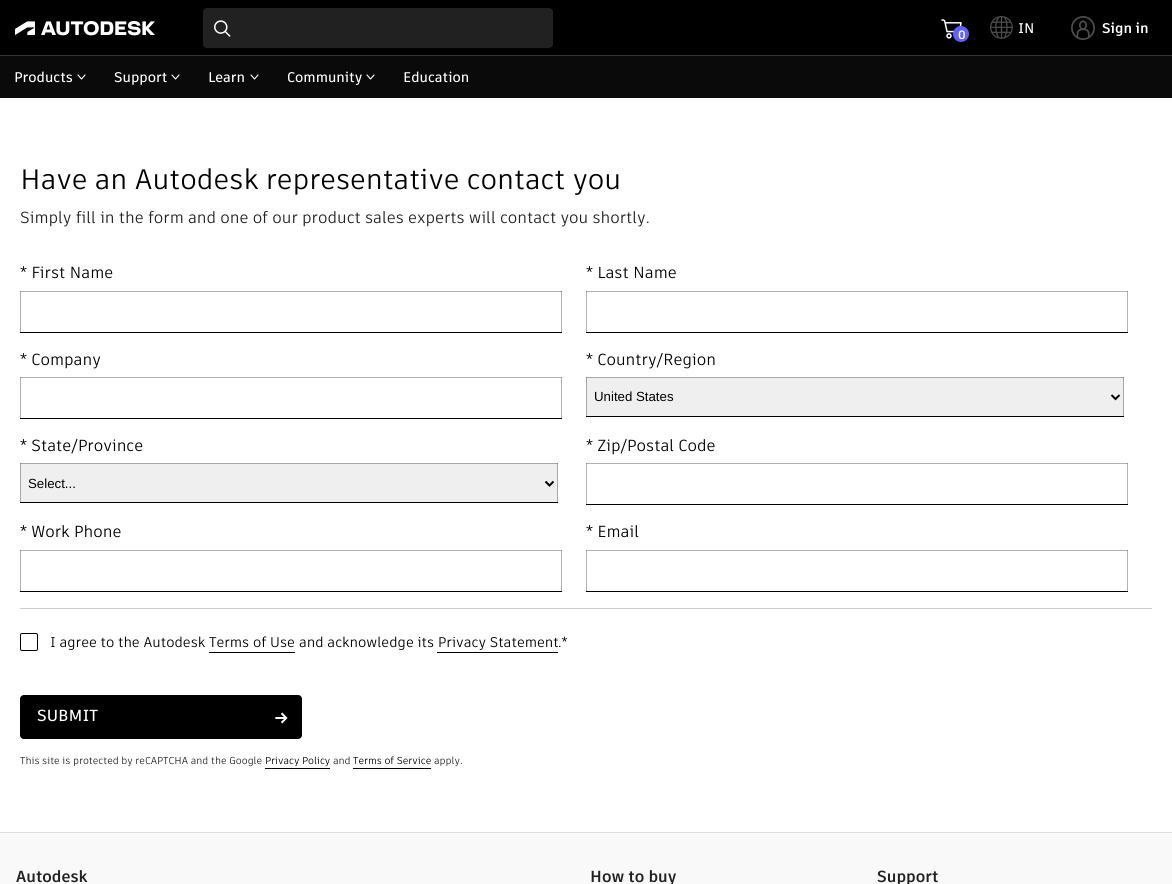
#include <cairo/cairo.h>
#include <math.h>
#include <stddef.h>


static void rounded_rect(cairo_t *cr, double x, double y, double w, double h, double r) {
  cairo_new_sub_path(cr);
  cairo_arc(cr, x + w - r, y + h - r, r, 0, M_PI / 2);
  cairo_arc(cr, x + r, y + h - r, r, M_PI / 2, M_PI);
  cairo_arc(cr, x + r, y + r, r, M_PI, 1.5 * M_PI);
  cairo_arc(cr, x + w - r, y + r, r, 1.5 * M_PI, 2 * M_PI);
  cairo_close_path(cr);
}

static void draw_image(cairo_t *cr, const char *path, double x, double y, double w, double h) {
  cairo_surface_t *image = cairo_image_surface_create_from_png(path);
  cairo_save(cr);
  cairo_set_source_surface(cr, image, x, y);
  cairo_rectangle(cr, x, y, w, h);
  cairo_fill(cr);
  cairo_restore(cr);
  cairo_surface_destroy(image);
}

static void draw(cairo_t *cr) {
  cairo_set_source_rgb(cr, 1, 1, 1);
  cairo_paint(cr);
  cairo_set_source_rgb(cr, 0, 0, 0);
  cairo_rectangle(cr, 0, 0, 1172, 55);
  cairo_fill(cr);
  cairo_set_source_rgb(cr, 10 / 255.0, 10 / 255.0, 10 / 255.0);
  cairo_rectangle(cr, 0, 56, 1172, 42);
  cairo_fill(cr);
  draw_image(cr, "images/1.png", 15, 21, 140, 15);
  cairo_set_source_rgb(cr, 33 / 255.0, 33 / 255.0, 33 / 255.0);
  rounded_rect(cr, 203, 8, 350, 40, 4);
  cairo_fill(cr);
  draw_image(cr, "images/2.png", 214, 20, 17, 17);
  draw_image(cr, "images/3.png", 990, 16, 23, 23);
  draw_image(cr, "images/4.png", 941, 19, 21, 20);
  cairo_set_source_rgb(cr, 95 / 255.0, 96 / 255.0, 1);
  cairo_arc(cr, 961, 34, 8, 0, 2 * M_PI);
  cairo_fill(cr);
  draw_image(cr, "images/5.png", 1071, 16, 24, 24);
  cairo_set_source_rgb(cr, 51 / 255.0, 51 / 255.0, 51 / 255.0);
  cairo_rectangle(cr, 0, 55, 1172, 1);
  cairo_fill(cr);
  cairo_new_path(cr);
  cairo_move_to(cr, 85, 75);
  cairo_line_to(cr, 81.5, 79);
  cairo_line_to(cr, 78, 75);
  cairo_set_source_rgb(cr, 1, 1, 1);
  cairo_set_line_width(cr, 1.1);
  cairo_set_line_cap(cr, CAIRO_LINE_CAP_ROUND);
  cairo_set_line_join(cr, CAIRO_LINE_JOIN_ROUND);
  cairo_stroke(cr);
  cairo_new_path(cr);
  cairo_move_to(cr, 179, 75);
  cairo_line_to(cr, 175.5, 79);
  cairo_line_to(cr, 172, 75);
  cairo_stroke(cr);
  cairo_new_path(cr);
  cairo_move_to(cr, 258, 75);
  cairo_line_to(cr, 254.5, 79);
  cairo_line_to(cr, 251, 75);
  cairo_stroke(cr);
  cairo_new_path(cr);
  cairo_move_to(cr, 374, 75);
  cairo_line_to(cr, 370.5, 79);
  cairo_line_to(cr, 367, 75);
  cairo_stroke(cr);
  cairo_set_source_rgb(cr, 0, 0, 0);
  cairo_rectangle(cr, 20, 332, 542, 1);
  cairo_fill(cr);
  cairo_rectangle(cr, 20.25, 291.25, 541.5, 41.5);
  cairo_set_source_rgba(cr, 0, 0, 0, 0.6);
  cairo_set_line_width(cr, 0.5);
  cairo_set_line_cap(cr, CAIRO_LINE_CAP_BUTT);
  cairo_set_line_join(cr, CAIRO_LINE_JOIN_MITER);
  cairo_stroke(cr);
  cairo_set_source_rgb(cr, 0, 0, 0);
  cairo_rectangle(cr, 586, 332, 542, 1);
  cairo_fill(cr);
  cairo_rectangle(cr, 586.25, 291.25, 541.5, 41.5);
  cairo_set_source_rgba(cr, 0, 0, 0, 0.6);
  cairo_stroke(cr);
  cairo_set_source_rgb(cr, 0, 0, 0);
  cairo_rectangle(cr, 20, 418, 542, 1);
  cairo_fill(cr);
  cairo_rectangle(cr, 20.25, 377.25, 541.5, 41.5);
  cairo_set_source_rgba(cr, 0, 0, 0, 0.6);
  cairo_stroke(cr);
  cairo_set_source_rgb(cr, 239 / 255.0, 239 / 255.0, 239 / 255.0);
  cairo_rectangle(cr, 586, 377, 538, 39);
  cairo_fill(cr);
  cairo_set_source_rgb(cr, 0, 0, 0);
  cairo_rectangle(cr, 586, 416, 538, 1);
  cairo_fill(cr);
  cairo_rectangle(cr, 586.25, 377.25, 537.5, 39.5);
  cairo_set_source_rgba(cr, 0, 0, 0, 0.6);
  cairo_stroke(cr);
  cairo_new_path(cr);
  cairo_move_to(cr, 1111.5, 395);
  cairo_line_to(cr, 1115.5, 399);
  cairo_line_to(cr, 1119.5, 395);
  cairo_set_source_rgb(cr, 0, 0, 0);
  cairo_set_line_width(cr, 2);
  cairo_stroke(cr);
  cairo_set_source_rgb(cr, 239 / 255.0, 239 / 255.0, 239 / 255.0);
  cairo_rectangle(cr, 20, 463, 538, 39);
  cairo_fill(cr);
  cairo_set_source_rgb(cr, 0, 0, 0);
  cairo_rectangle(cr, 20, 502, 538, 1);
  cairo_fill(cr);
  cairo_rectangle(cr, 20.25, 463.25, 537.5, 39.5);
  cairo_set_source_rgba(cr, 0, 0, 0, 0.6);
  cairo_set_line_width(cr, 0.5);
  cairo_stroke(cr);
  cairo_new_path(cr);
  cairo_move_to(cr, 545.5, 481.5);
  cairo_line_to(cr, 549.5, 485.5);
  cairo_line_to(cr, 553.5, 481.5);
  cairo_set_source_rgb(cr, 0, 0, 0);
  cairo_set_line_width(cr, 2);
  cairo_stroke(cr);
  cairo_rectangle(cr, 586, 504, 542, 1);
  cairo_fill(cr);
  cairo_rectangle(cr, 586.25, 463.25, 541.5, 41.5);
  cairo_set_source_rgba(cr, 0, 0, 0, 0.6);
  cairo_set_line_width(cr, 0.5);
  cairo_stroke(cr);
  cairo_set_source_rgb(cr, 0, 0, 0);
  cairo_rectangle(cr, 20, 591, 542, 1);
  cairo_fill(cr);
  cairo_rectangle(cr, 20.25, 550.25, 541.5, 41.5);
  cairo_set_source_rgba(cr, 0, 0, 0, 0.6);
  cairo_stroke(cr);
  cairo_set_source_rgb(cr, 0, 0, 0);
  cairo_rectangle(cr, 586, 591, 542, 1);
  cairo_fill(cr);
  cairo_rectangle(cr, 586.25, 550.25, 541.5, 41.5);
  cairo_set_source_rgba(cr, 0, 0, 0, 0.6);
  cairo_stroke(cr);
  cairo_set_source_rgb(cr, 205 / 255.0, 205 / 255.0, 205 / 255.0);
  cairo_rectangle(cr, 20, 608, 1132, 1);
  cairo_fill(cr);
  rounded_rect(cr, 20.5, 633.5, 17, 17, 1.5);
  cairo_set_source_rgb(cr, 0, 0, 0);
  cairo_set_line_width(cr, 1);
  cairo_stroke(cr);
  cairo_rectangle(cr, 209, 652, 86, 1);
  cairo_fill(cr);
  cairo_rectangle(cr, 437, 652, 121, 1);
  cairo_fill(cr);
  rounded_rect(cr, 20.5, 695.5, 281, 43, 3.5);
  cairo_fill_preserve(cr);
  cairo_stroke(cr);
  draw_image(cr, "images/6.png", 275, 712, 13, 12);
  cairo_rectangle(cr, 265, 768, 65, 1);
  cairo_fill(cr);
  cairo_rectangle(cr, 353, 768, 78, 1);
  cairo_fill(cr);
  cairo_set_source_rgb(cr, 222 / 255.0, 222 / 255.0, 222 / 255.0);
  cairo_rectangle(cr, 0, 832, 1172, 1);
  cairo_fill(cr);
  cairo_set_source_rgb(cr, 249 / 255.0, 249 / 255.0, 249 / 255.0);
  cairo_rectangle(cr, 0, 833, 1172, 51);
  cairo_fill(cr);
  cairo_select_font_face(cr, "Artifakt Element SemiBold", CAIRO_FONT_SLANT_NORMAL, CAIRO_FONT_WEIGHT_NORMAL);
  cairo_set_font_size(cr, 14);
  cairo_set_source_rgb(cr, 1, 1, 1);
  cairo_move_to(cr, 1018, 33);
  cairo_show_text(cr, "IN");
  cairo_select_font_face(cr, "Artifakt Element", CAIRO_FONT_SLANT_NORMAL, CAIRO_FONT_WEIGHT_BOLD);
  cairo_set_font_size(cr, 12);
  cairo_move_to(cr, 958, 39);
  cairo_show_text(cr, "0");
  cairo_set_font_size(cr, 14);
  cairo_move_to(cr, 1102, 33);
  cairo_show_text(cr, "Sign in");
  cairo_select_font_face(cr, "Artifakt Element SemiBold", CAIRO_FONT_SLANT_NORMAL, CAIRO_FONT_WEIGHT_NORMAL);
  cairo_move_to(cr, 14, 82);
  cairo_show_text(cr, "Products");
  cairo_move_to(cr, 114, 82);
  cairo_show_text(cr, "Support");
  cairo_move_to(cr, 208, 82);
  cairo_show_text(cr, "Learn");
  cairo_move_to(cr, 287, 82);
  cairo_show_text(cr, "Community");
  cairo_move_to(cr, 403, 82);
  cairo_show_text(cr, "Education");
  cairo_select_font_face(cr, "Artifakt Element", CAIRO_FONT_SLANT_NORMAL, CAIRO_FONT_WEIGHT_NORMAL);
  cairo_set_font_size(cr, 28);
  cairo_set_source_rgb(cr, 0, 0, 0);
  cairo_move_to(cr, 20, 189);
  cairo_show_text(cr, "Have an Autodesk representative contact you");
  cairo_set_font_size(cr, 16);
  cairo_set_source_rgb(cr, 33 / 255.0, 33 / 255.0, 33 / 255.0);
  cairo_move_to(cr, 20, 223);
  cairo_show_text(cr, "Simply fill in the form and one of our product sales experts will contact you shortly.");
  cairo_set_source_rgb(cr, 0, 0, 0);
  cairo_move_to(cr, 20, 278);
  cairo_show_text(cr, "* First Name");
  cairo_move_to(cr, 586, 278);
  cairo_show_text(cr, "* Last Name");
  cairo_move_to(cr, 20, 365);
  cairo_show_text(cr, "* Company");
  cairo_move_to(cr, 586, 365);
  cairo_show_text(cr, "* Country/Region");
  cairo_select_font_face(cr, "Liberation Sans", CAIRO_FONT_SLANT_NORMAL, CAIRO_FONT_WEIGHT_NORMAL);
  cairo_set_font_size(cr, 13.25);
  cairo_move_to(cr, 594, 401);
  cairo_show_text(cr, "United States");
  cairo_select_font_face(cr, "Artifakt Element", CAIRO_FONT_SLANT_NORMAL, CAIRO_FONT_WEIGHT_NORMAL);
  cairo_set_font_size(cr, 16);
  cairo_move_to(cr, 20, 451);
  cairo_show_text(cr, "* State/Province");
  cairo_select_font_face(cr, "Liberation Sans", CAIRO_FONT_SLANT_NORMAL, CAIRO_FONT_WEIGHT_NORMAL);
  cairo_set_font_size(cr, 13.25);
  cairo_move_to(cr, 28, 488);
  cairo_show_text(cr, "Select...");
  cairo_select_font_face(cr, "Artifakt Element", CAIRO_FONT_SLANT_NORMAL, CAIRO_FONT_WEIGHT_NORMAL);
  cairo_set_font_size(cr, 16);
  cairo_move_to(cr, 586, 451);
  cairo_show_text(cr, "* Zip/Postal Code");
  cairo_move_to(cr, 20, 537);
  cairo_show_text(cr, "* Work Phone");
  cairo_move_to(cr, 586, 537);
  cairo_show_text(cr, "* Email");
  cairo_set_font_size(cr, 14);
  cairo_move_to(cr, 50, 647);
  cairo_show_text(cr, "I agree to the Autodesk Terms of Use");
  cairo_move_to(cr, 299, 647);
  cairo_show_text(cr, "and acknowledge its Privacy Statement");
  cairo_move_to(cr, 558, 647);
  cairo_show_text(cr, ".*");
  cairo_select_font_face(cr, "Artifakt Element Medium", CAIRO_FONT_SLANT_NORMAL, CAIRO_FONT_WEIGHT_NORMAL);
  cairo_set_font_size(cr, 16);
  cairo_set_source_rgb(cr, 1, 1, 1);
  cairo_move_to(cr, 37, 721);
  cairo_show_text(cr, "SUBMIT");
  cairo_select_font_face(cr, "Artifakt Element", CAIRO_FONT_SLANT_NORMAL, CAIRO_FONT_WEIGHT_NORMAL);
  cairo_set_font_size(cr, 10);
  cairo_set_source_rgb(cr, 33 / 255.0, 33 / 255.0, 33 / 255.0);
  cairo_move_to(cr, 20, 764);
  cairo_show_text(cr, "This site is protected by reCAPTCHA and the Google");
  cairo_set_source_rgb(cr, 0, 0, 0);
  cairo_move_to(cr, 265, 764);
  cairo_show_text(cr, "Privacy Policy");
  cairo_set_source_rgb(cr, 33 / 255.0, 33 / 255.0, 33 / 255.0);
  cairo_move_to(cr, 333, 764);
  cairo_show_text(cr, "and");
  cairo_set_source_rgb(cr, 0, 0, 0);
  cairo_move_to(cr, 353, 764);
  cairo_show_text(cr, "Terms of Service");
  cairo_set_source_rgb(cr, 33 / 255.0, 33 / 255.0, 33 / 255.0);
  cairo_move_to(cr, 434, 764);
  cairo_show_text(cr, "apply.");
  cairo_select_font_face(cr, "Artifakt Element", CAIRO_FONT_SLANT_NORMAL, CAIRO_FONT_WEIGHT_BOLD);
  cairo_set_font_size(cr, 16);
  cairo_move_to(cr, 16, 882);
  cairo_show_text(cr, "Autodesk");
  cairo_move_to(cr, 590, 882);
  cairo_show_text(cr, "How to buy");
  cairo_move_to(cr, 877, 882);
  cairo_show_text(cr, "Support");
}

int main(void) {
  cairo_surface_t *surface = cairo_image_surface_create(CAIRO_FORMAT_RGB24, 1172, 884);
  cairo_t *cr = cairo_create(surface);
  cairo_font_options_t *options = cairo_font_options_create();
  cairo_font_options_set_hint_metrics(options, CAIRO_HINT_METRICS_OFF);
  cairo_font_options_set_hint_style(options, CAIRO_HINT_STYLE_NONE);
  cairo_set_font_options(cr, options);
  cairo_set_miter_limit(cr, 4);
  draw(cr);
  cairo_surface_write_to_png(surface, "out.png");
  cairo_font_options_destroy(options);
  cairo_destroy(cr);
  cairo_surface_destroy(surface);
  return 0;
}
